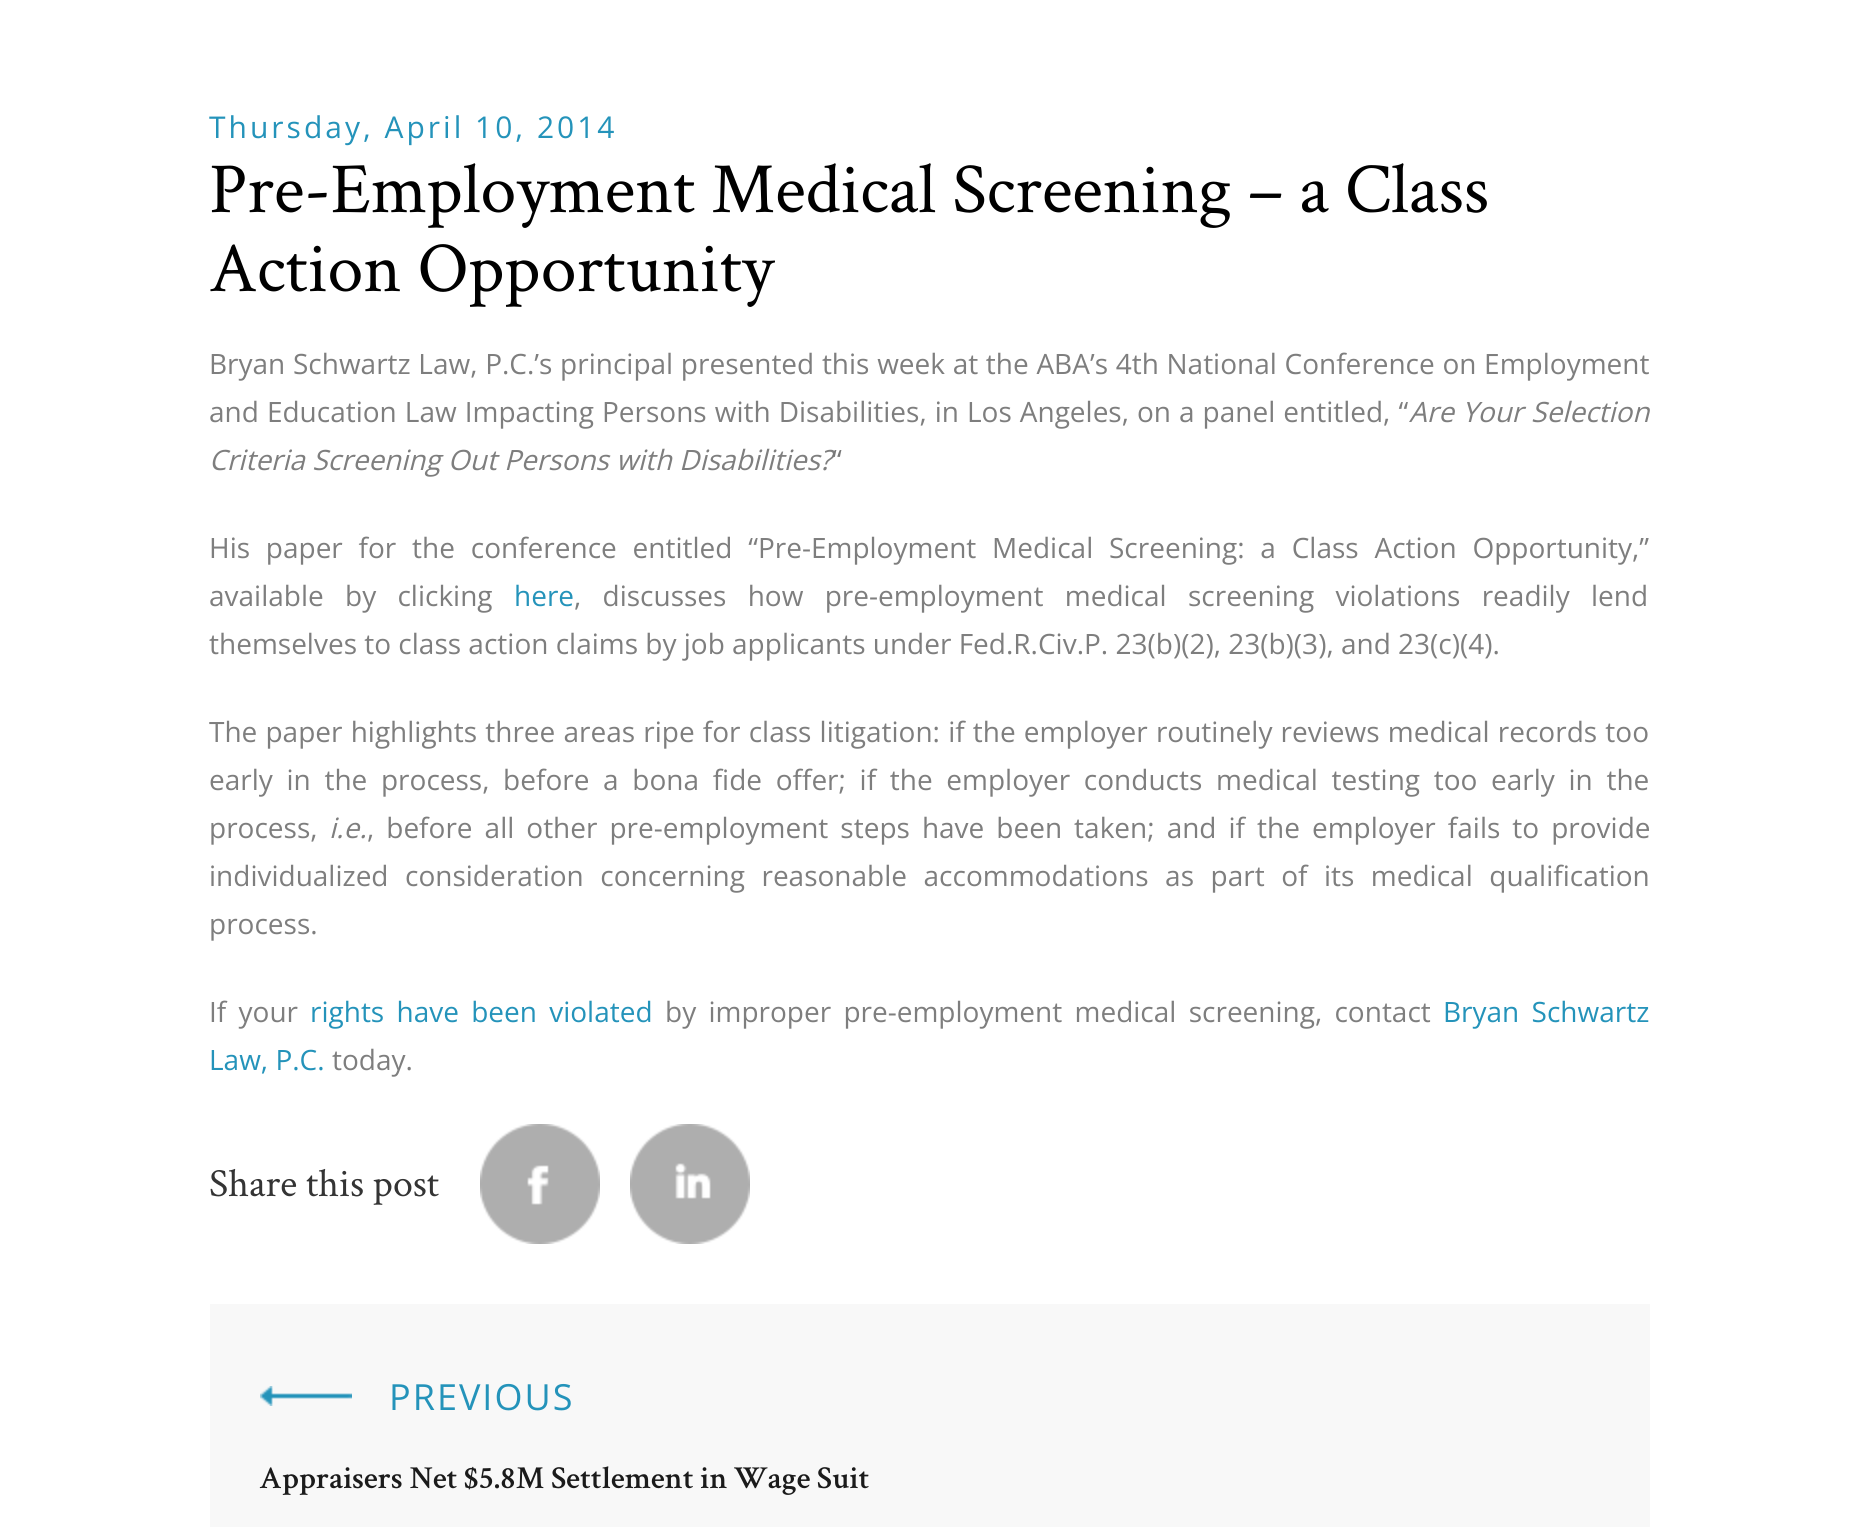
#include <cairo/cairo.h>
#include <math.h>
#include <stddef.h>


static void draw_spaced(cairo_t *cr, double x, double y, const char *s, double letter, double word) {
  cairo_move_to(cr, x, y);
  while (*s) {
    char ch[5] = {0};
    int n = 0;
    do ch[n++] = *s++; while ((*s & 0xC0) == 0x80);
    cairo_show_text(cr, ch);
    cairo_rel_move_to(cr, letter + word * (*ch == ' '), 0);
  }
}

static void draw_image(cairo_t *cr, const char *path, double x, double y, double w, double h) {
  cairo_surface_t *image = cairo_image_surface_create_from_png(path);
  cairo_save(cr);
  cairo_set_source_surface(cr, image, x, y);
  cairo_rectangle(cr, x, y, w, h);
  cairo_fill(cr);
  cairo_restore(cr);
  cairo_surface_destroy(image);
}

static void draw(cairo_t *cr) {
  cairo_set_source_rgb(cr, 1, 1, 1);
  cairo_paint(cr);
  draw_image(cr, "images/1.png", 480, 1124, 120, 120);
  draw_image(cr, "images/2.png", 630, 1124, 120, 120);
  cairo_set_source_rgb(cr, 248 / 255.0, 248 / 255.0, 248 / 255.0);
  cairo_rectangle(cr, 210, 1304, 1440, 223);
  cairo_fill(cr);
  draw_image(cr, "images/3.png", 260, 1386, 92, 20);
  cairo_select_font_face(cr, "Open Sans", CAIRO_FONT_SLANT_NORMAL, CAIRO_FONT_WEIGHT_NORMAL);
  cairo_set_font_size(cr, 30);
  cairo_set_source_rgb(cr, 36 / 255.0, 147 / 255.0, 186 / 255.0);
  draw_spaced(cr, 209, 138, "Thursday, April 10, 2014", 3, 0);
  cairo_select_font_face(cr, "Crimson Text", CAIRO_FONT_SLANT_NORMAL, CAIRO_FONT_WEIGHT_NORMAL);
  cairo_set_font_size(cr, 72);
  cairo_set_source_rgb(cr, 0, 0, 0);
  cairo_move_to(cr, 209, 212);
  cairo_show_text(cr, "Pre-Employment Medical Screening – a Class");
  cairo_move_to(cr, 209, 291);
  cairo_show_text(cr, "Action Opportunity");
  cairo_select_font_face(cr, "Open Sans", CAIRO_FONT_SLANT_NORMAL, CAIRO_FONT_WEIGHT_NORMAL);
  cairo_set_font_size(cr, 28);
  cairo_set_source_rgb(cr, 126 / 255.0, 126 / 255.0, 126 / 255.0);
  draw_spaced(cr, 209, 374, "Bryan Schwartz Law, P.C.’s principal presented this week at the ABA’s 4th National Conference on Employment", 0, 0.4);
  draw_spaced(cr, 209, 422, "and Education Law Impacting Persons with Disabilities, in Los Angeles, on a panel entitled, “", 0, 0.75);
  cairo_select_font_face(cr, "Open Sans", CAIRO_FONT_SLANT_ITALIC, CAIRO_FONT_WEIGHT_NORMAL);
  draw_spaced(cr, 1409, 422, "Are Your Selection", 0, 0.75);
  cairo_move_to(cr, 209, 470);
  cairo_show_text(cr, "Criteria Screening Out Persons with Disabilities?");
  cairo_select_font_face(cr, "Open Sans", CAIRO_FONT_SLANT_NORMAL, CAIRO_FONT_WEIGHT_NORMAL);
  cairo_set_source_rgb(cr, 119 / 255.0, 119 / 255.0, 119 / 255.0);
  cairo_move_to(cr, 832, 470);
  cairo_show_text(cr, "“");
  cairo_set_source_rgb(cr, 126 / 255.0, 126 / 255.0, 126 / 255.0);
  draw_spaced(cr, 209, 558, "His paper for the conference entitled “Pre-Employment Medical Screening: a Class Action Opportunity,”", 0, 8.5);
  draw_spaced(cr, 209, 606, "available by clicking", 0, 14);
  cairo_set_source_rgb(cr, 36 / 255.0, 147 / 255.0, 186 / 255.0);
  cairo_move_to(cr, 514, 606);
  cairo_show_text(cr, "here");
  cairo_set_source_rgb(cr, 126 / 255.0, 126 / 255.0, 126 / 255.0);
  draw_spaced(cr, 574, 606, ", discusses how pre-employment medical screening violations readily lend", 0, 14);
  cairo_move_to(cr, 209, 654);
  cairo_show_text(cr, "themselves to class action claims by job applicants under Fed.R.Civ.P. 23(b)(2), 23(b)(3), and 23(c)(4).");
  draw_spaced(cr, 209, 742, "The paper highlights three areas ripe for class litigation: if the employer routinely reviews medical records too", 0, 0.9);
  draw_spaced(cr, 209, 790, "early in the process, before a bona fide offer; if the employer conducts medical testing too early in the", 0, 6.4);
  cairo_move_to(cr, 209, 838);
  cairo_show_text(cr, "process,");
  cairo_select_font_face(cr, "Open Sans", CAIRO_FONT_SLANT_ITALIC, CAIRO_FONT_WEIGHT_NORMAL);
  cairo_move_to(cr, 329, 838);
  cairo_show_text(cr, "i.e.");
  cairo_select_font_face(cr, "Open Sans", CAIRO_FONT_SLANT_NORMAL, CAIRO_FONT_WEIGHT_NORMAL);
  draw_spaced(cr, 367, 838, ", before all other pre-employment steps have been taken; and if the employer fails to provide", 0, 4.75);
  draw_spaced(cr, 209, 886, "individualized consideration concerning reasonable accommodations as part of its medical qualification", 0, 9.25);
  cairo_move_to(cr, 209, 934);
  cairo_show_text(cr, "process.");
  draw_spaced(cr, 209, 1022, "If your", 0, 5);
  cairo_set_source_rgb(cr, 36 / 255.0, 147 / 255.0, 186 / 255.0);
  draw_spaced(cr, 310, 1022, "rights have been violated", 0, 5);
  cairo_set_source_rgb(cr, 126 / 255.0, 126 / 255.0, 126 / 255.0);
  draw_spaced(cr, 665, 1022, "by improper pre-employment medical screening, contact", 0, 5);
  cairo_set_source_rgb(cr, 36 / 255.0, 147 / 255.0, 186 / 255.0);
  draw_spaced(cr, 1443, 1022, "Bryan Schwartz", 0, 5);
  cairo_move_to(cr, 209, 1070);
  cairo_show_text(cr, "Law, P.C.");
  cairo_set_source_rgb(cr, 126 / 255.0, 126 / 255.0, 126 / 255.0);
  cairo_move_to(cr, 332, 1070);
  cairo_show_text(cr, "today.");
  cairo_select_font_face(cr, "Crimson Text", CAIRO_FONT_SLANT_NORMAL, CAIRO_FONT_WEIGHT_NORMAL);
  cairo_set_font_size(cr, 40);
  cairo_set_source_rgb(cr, 52 / 255.0, 52 / 255.0, 52 / 255.0);
  cairo_move_to(cr, 209, 1196);
  cairo_show_text(cr, "Share this post");
  cairo_select_font_face(cr, "Open Sans", CAIRO_FONT_SLANT_NORMAL, CAIRO_FONT_WEIGHT_NORMAL);
  cairo_set_font_size(cr, 36);
  cairo_set_source_rgb(cr, 36 / 255.0, 147 / 255.0, 186 / 255.0);
  draw_spaced(cr, 389, 1410, "PREVIOUS", 2, 0);
  cairo_select_font_face(cr, "Crimson Text SemiBold", CAIRO_FONT_SLANT_NORMAL, CAIRO_FONT_WEIGHT_NORMAL);
  cairo_set_font_size(cr, 32);
  cairo_set_source_rgb(cr, 27 / 255.0, 27 / 255.0, 27 / 255.0);
  cairo_move_to(cr, 259, 1488);
  cairo_show_text(cr, "Appraisers Net $5.8M Settlement in Wage Suit");
}

int main(void) {
  cairo_surface_t *surface = cairo_image_surface_create(CAIRO_FORMAT_RGB24, 1858, 1527);
  cairo_t *cr = cairo_create(surface);
  cairo_font_options_t *options = cairo_font_options_create();
  cairo_font_options_set_hint_metrics(options, CAIRO_HINT_METRICS_OFF);
  cairo_font_options_set_hint_style(options, CAIRO_HINT_STYLE_NONE);
  cairo_set_font_options(cr, options);
  cairo_set_miter_limit(cr, 4);
  draw(cr);
  cairo_surface_write_to_png(surface, "out.png");
  cairo_font_options_destroy(options);
  cairo_destroy(cr);
  cairo_surface_destroy(surface);
  return 0;
}
